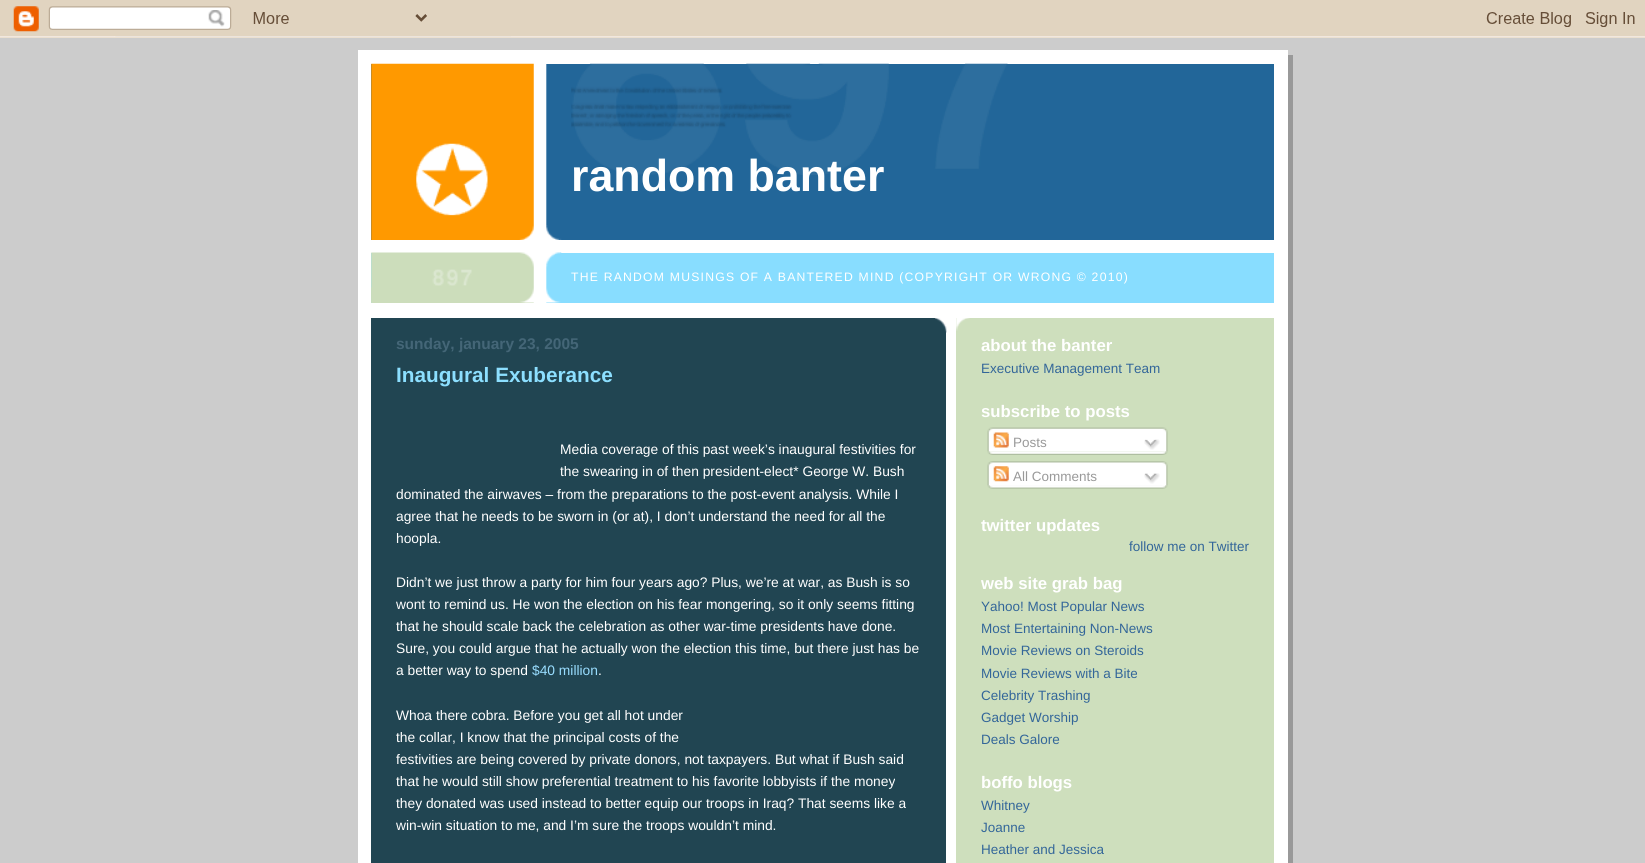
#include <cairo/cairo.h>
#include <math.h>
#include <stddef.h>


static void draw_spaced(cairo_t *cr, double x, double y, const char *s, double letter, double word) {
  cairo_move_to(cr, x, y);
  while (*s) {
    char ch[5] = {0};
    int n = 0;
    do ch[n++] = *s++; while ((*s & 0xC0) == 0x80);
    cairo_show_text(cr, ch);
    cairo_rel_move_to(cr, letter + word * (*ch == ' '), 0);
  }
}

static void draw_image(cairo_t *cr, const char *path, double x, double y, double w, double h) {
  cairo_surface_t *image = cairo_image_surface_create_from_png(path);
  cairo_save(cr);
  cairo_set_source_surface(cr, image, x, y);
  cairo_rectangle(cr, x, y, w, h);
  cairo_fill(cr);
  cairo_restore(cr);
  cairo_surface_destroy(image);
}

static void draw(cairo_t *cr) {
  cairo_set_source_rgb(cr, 204 / 255.0, 204 / 255.0, 204 / 255.0);
  cairo_paint(cr);
  draw_image(cr, "images/1.png", 0, 0, 1645, 38);
  cairo_set_source_rgb(cr, 153 / 255.0, 153 / 255.0, 153 / 255.0);
  cairo_rectangle(cr, 1288, 55, 5, 808);
  cairo_fill(cr);
  cairo_set_source_rgb(cr, 1, 1, 1);
  cairo_rectangle(cr, 358, 50, 930, 813);
  cairo_fill(cr);
  cairo_set_source_rgb(cr, 34 / 255.0, 102 / 255.0, 153 / 255.0);
  cairo_rectangle(cr, 371, 64, 903, 176);
  cairo_fill(cr);
  draw_image(cr, "images/2.png", 371, 63, 191, 177);
  draw_image(cr, "images/3.png", 571, 63, 437, 112);
  cairo_set_source_rgb(cr, 136 / 255.0, 221 / 255.0, 1);
  cairo_rectangle(cr, 371, 253, 903, 50);
  cairo_fill(cr);
  draw_image(cr, "images/4.png", 371, 252, 191, 51);
  draw_image(cr, "images/5.png", 371, 287, 190, 16);
  draw_image(cr, "images/6.png", 432, 269, 40, 17);
  cairo_set_source_rgb(cr, 33 / 255.0, 69 / 255.0, 82 / 255.0);
  cairo_rectangle(cr, 371, 318, 575, 545);
  cairo_fill(cr);
  draw_image(cr, "images/7.png", 934, 318, 13, 15);
  cairo_set_source_rgb(cr, 206 / 255.0, 223 / 255.0, 189 / 255.0);
  cairo_rectangle(cr, 956, 318, 318, 545);
  cairo_fill(cr);
  draw_image(cr, "images/8.png", 956, 318, 16, 13);
  draw_image(cr, "images/9.png", 987, 427, 181, 25);
  draw_image(cr, "images/10.png", 993, 432, 16, 16);
  draw_image(cr, "images/11.png", 1144, 439, 16, 11);
  draw_image(cr, "images/12.png", 987, 451, 181, 4);
  draw_image(cr, "images/13.png", 987, 461, 181, 24);
  draw_image(cr, "images/14.png", 993, 466, 16, 16);
  draw_image(cr, "images/15.png", 1144, 473, 16, 11);
  draw_image(cr, "images/16.png", 987, 485, 181, 4);
  cairo_select_font_face(cr, "Liberation Sans", CAIRO_FONT_SLANT_NORMAL, CAIRO_FONT_WEIGHT_BOLD);
  cairo_set_font_size(cr, 44.75);
  cairo_set_source_rgb(cr, 1, 1, 1);
  cairo_move_to(cr, 571, 191);
  cairo_show_text(cr, "random banter");
  cairo_select_font_face(cr, "Liberation Sans", CAIRO_FONT_SLANT_NORMAL, CAIRO_FONT_WEIGHT_NORMAL);
  cairo_set_font_size(cr, 12.2);
  draw_spaced(cr, 571, 281, "THE RANDOM MUSINGS OF A BANTERED MIND (COPYRIGHT OR WRONG © 2010)", 1.22, 0);
  cairo_select_font_face(cr, "Liberation Sans", CAIRO_FONT_SLANT_NORMAL, CAIRO_FONT_WEIGHT_BOLD);
  cairo_set_font_size(cr, 15.5);
  cairo_set_source_rgb(cr, 68 / 255.0, 102 / 255.0, 119 / 255.0);
  cairo_move_to(cr, 396, 349);
  cairo_show_text(cr, "sunday, january 23, 2005");
  cairo_set_font_size(cr, 20.75);
  cairo_set_source_rgb(cr, 140 / 255.0, 223 / 255.0, 1);
  cairo_move_to(cr, 396, 382);
  cairo_show_text(cr, "Inaugural Exuberance");
  cairo_select_font_face(cr, "Liberation Sans", CAIRO_FONT_SLANT_NORMAL, CAIRO_FONT_WEIGHT_NORMAL);
  cairo_set_font_size(cr, 13.8);
  cairo_set_source_rgb(cr, 1, 1, 1);
  cairo_move_to(cr, 560, 454);
  cairo_show_text(cr, "Media coverage of this past week’s inaugural festivities for");
  cairo_move_to(cr, 560, 476);
  cairo_show_text(cr, "the swearing in of then president-elect* George W. Bush");
  cairo_move_to(cr, 396, 499);
  cairo_show_text(cr, "dominated the airwaves – from the preparations to the post-event analysis. While I");
  cairo_move_to(cr, 396, 521);
  cairo_show_text(cr, "agree that he needs to be sworn in (or at), I don’t understand the need for all the");
  cairo_move_to(cr, 396, 543);
  cairo_show_text(cr, "hoopla.");
  cairo_move_to(cr, 396, 587);
  cairo_show_text(cr, "Didn’t we just throw a party for him four years ago? Plus, we’re at war, as Bush is so");
  cairo_move_to(cr, 396, 609);
  cairo_show_text(cr, "wont to remind us. He won the election on his fear mongering, so it only seems fitting");
  cairo_move_to(cr, 396, 631);
  cairo_show_text(cr, "that he should scale back the celebration as other war-time presidents have done.");
  cairo_move_to(cr, 396, 653);
  cairo_show_text(cr, "Sure, you could argue that he actually won the election this time, but there just has be");
  cairo_move_to(cr, 396, 675);
  cairo_show_text(cr, "a better way to spend");
  cairo_set_source_rgb(cr, 153 / 255.0, 221 / 255.0, 1);
  cairo_move_to(cr, 532, 675);
  cairo_show_text(cr, "$40 million");
  cairo_set_source_rgb(cr, 1, 1, 1);
  cairo_move_to(cr, 598, 675);
  cairo_show_text(cr, ".");
  cairo_move_to(cr, 396, 720);
  cairo_show_text(cr, "Whoa there cobra. Before you get all hot under");
  cairo_move_to(cr, 396, 742);
  cairo_show_text(cr, "the collar, I know that the principal costs of the");
  cairo_move_to(cr, 396, 764);
  cairo_show_text(cr, "festivities are being covered by private donors, not taxpayers. But what if Bush said");
  cairo_move_to(cr, 396, 786);
  cairo_show_text(cr, "that he would still show preferential treatment to his favorite lobbyists if the money");
  cairo_move_to(cr, 396, 808);
  cairo_show_text(cr, "they donated was used instead to better equip our troops in Iraq? That seems like a");
  cairo_move_to(cr, 396, 830);
  cairo_show_text(cr, "win-win situation to me, and I’m sure the troops wouldn’t mind.");
  cairo_select_font_face(cr, "Liberation Sans", CAIRO_FONT_SLANT_NORMAL, CAIRO_FONT_WEIGHT_BOLD);
  cairo_set_font_size(cr, 16.75);
  cairo_move_to(cr, 981, 351);
  cairo_show_text(cr, "about the banter");
  cairo_select_font_face(cr, "Liberation Sans", CAIRO_FONT_SLANT_NORMAL, CAIRO_FONT_WEIGHT_NORMAL);
  cairo_set_font_size(cr, 13.5);
  cairo_set_source_rgb(cr, 51 / 255.0, 102 / 255.0, 153 / 255.0);
  cairo_move_to(cr, 981, 373);
  cairo_show_text(cr, "Executive Management Team");
  cairo_select_font_face(cr, "Liberation Sans", CAIRO_FONT_SLANT_NORMAL, CAIRO_FONT_WEIGHT_BOLD);
  cairo_set_font_size(cr, 16.75);
  cairo_set_source_rgb(cr, 1, 1, 1);
  cairo_move_to(cr, 981, 417);
  cairo_show_text(cr, "subscribe to posts");
  cairo_select_font_face(cr, "Liberation Sans", CAIRO_FONT_SLANT_NORMAL, CAIRO_FONT_WEIGHT_NORMAL);
  cairo_set_font_size(cr, 13.5);
  cairo_set_source_rgb(cr, 153 / 255.0, 153 / 255.0, 153 / 255.0);
  cairo_move_to(cr, 1013, 447);
  cairo_show_text(cr, "Posts");
  cairo_move_to(cr, 1013, 481);
  cairo_show_text(cr, "All Comments");
  cairo_select_font_face(cr, "Liberation Sans", CAIRO_FONT_SLANT_NORMAL, CAIRO_FONT_WEIGHT_BOLD);
  cairo_set_font_size(cr, 16.75);
  cairo_set_source_rgb(cr, 1, 1, 1);
  cairo_move_to(cr, 981, 531);
  cairo_show_text(cr, "twitter updates");
  cairo_select_font_face(cr, "Liberation Sans", CAIRO_FONT_SLANT_NORMAL, CAIRO_FONT_WEIGHT_NORMAL);
  cairo_set_font_size(cr, 13.5);
  cairo_set_source_rgb(cr, 51 / 255.0, 102 / 255.0, 153 / 255.0);
  cairo_move_to(cr, 1129, 551);
  cairo_show_text(cr, "follow me on Twitter");
  cairo_select_font_face(cr, "Liberation Sans", CAIRO_FONT_SLANT_NORMAL, CAIRO_FONT_WEIGHT_BOLD);
  cairo_set_font_size(cr, 16.75);
  cairo_set_source_rgb(cr, 1, 1, 1);
  cairo_move_to(cr, 981, 589);
  cairo_show_text(cr, "web site grab bag");
  cairo_select_font_face(cr, "Liberation Sans", CAIRO_FONT_SLANT_NORMAL, CAIRO_FONT_WEIGHT_NORMAL);
  cairo_set_font_size(cr, 13.5);
  cairo_set_source_rgb(cr, 51 / 255.0, 102 / 255.0, 153 / 255.0);
  cairo_move_to(cr, 981, 611);
  cairo_show_text(cr, "Yahoo! Most Popular News");
  cairo_move_to(cr, 981, 633);
  cairo_show_text(cr, "Most Entertaining Non-News");
  cairo_move_to(cr, 981, 655);
  cairo_show_text(cr, "Movie Reviews on Steroids");
  cairo_move_to(cr, 981, 678);
  cairo_show_text(cr, "Movie Reviews with a Bite");
  cairo_move_to(cr, 981, 700);
  cairo_show_text(cr, "Celebrity Trashing");
  cairo_move_to(cr, 981, 722);
  cairo_show_text(cr, "Gadget Worship");
  cairo_move_to(cr, 981, 744);
  cairo_show_text(cr, "Deals Galore");
  cairo_select_font_face(cr, "Liberation Sans", CAIRO_FONT_SLANT_NORMAL, CAIRO_FONT_WEIGHT_BOLD);
  cairo_set_font_size(cr, 16.75);
  cairo_set_source_rgb(cr, 1, 1, 1);
  cairo_move_to(cr, 981, 788);
  cairo_show_text(cr, "boffo blogs");
  cairo_select_font_face(cr, "Liberation Sans", CAIRO_FONT_SLANT_NORMAL, CAIRO_FONT_WEIGHT_NORMAL);
  cairo_set_font_size(cr, 13.5);
  cairo_set_source_rgb(cr, 51 / 255.0, 102 / 255.0, 153 / 255.0);
  cairo_move_to(cr, 981, 810);
  cairo_show_text(cr, "Whitney");
  cairo_move_to(cr, 981, 832);
  cairo_show_text(cr, "Joanne");
  cairo_move_to(cr, 981, 854);
  cairo_show_text(cr, "Heather and Jessica");
}

int main(void) {
  cairo_surface_t *surface = cairo_image_surface_create(CAIRO_FORMAT_RGB24, 1645, 863);
  cairo_t *cr = cairo_create(surface);
  cairo_font_options_t *options = cairo_font_options_create();
  cairo_font_options_set_hint_metrics(options, CAIRO_HINT_METRICS_OFF);
  cairo_font_options_set_hint_style(options, CAIRO_HINT_STYLE_NONE);
  cairo_set_font_options(cr, options);
  cairo_set_miter_limit(cr, 4);
  draw(cr);
  cairo_surface_write_to_png(surface, "out.png");
  cairo_font_options_destroy(options);
  cairo_destroy(cr);
  cairo_surface_destroy(surface);
  return 0;
}
